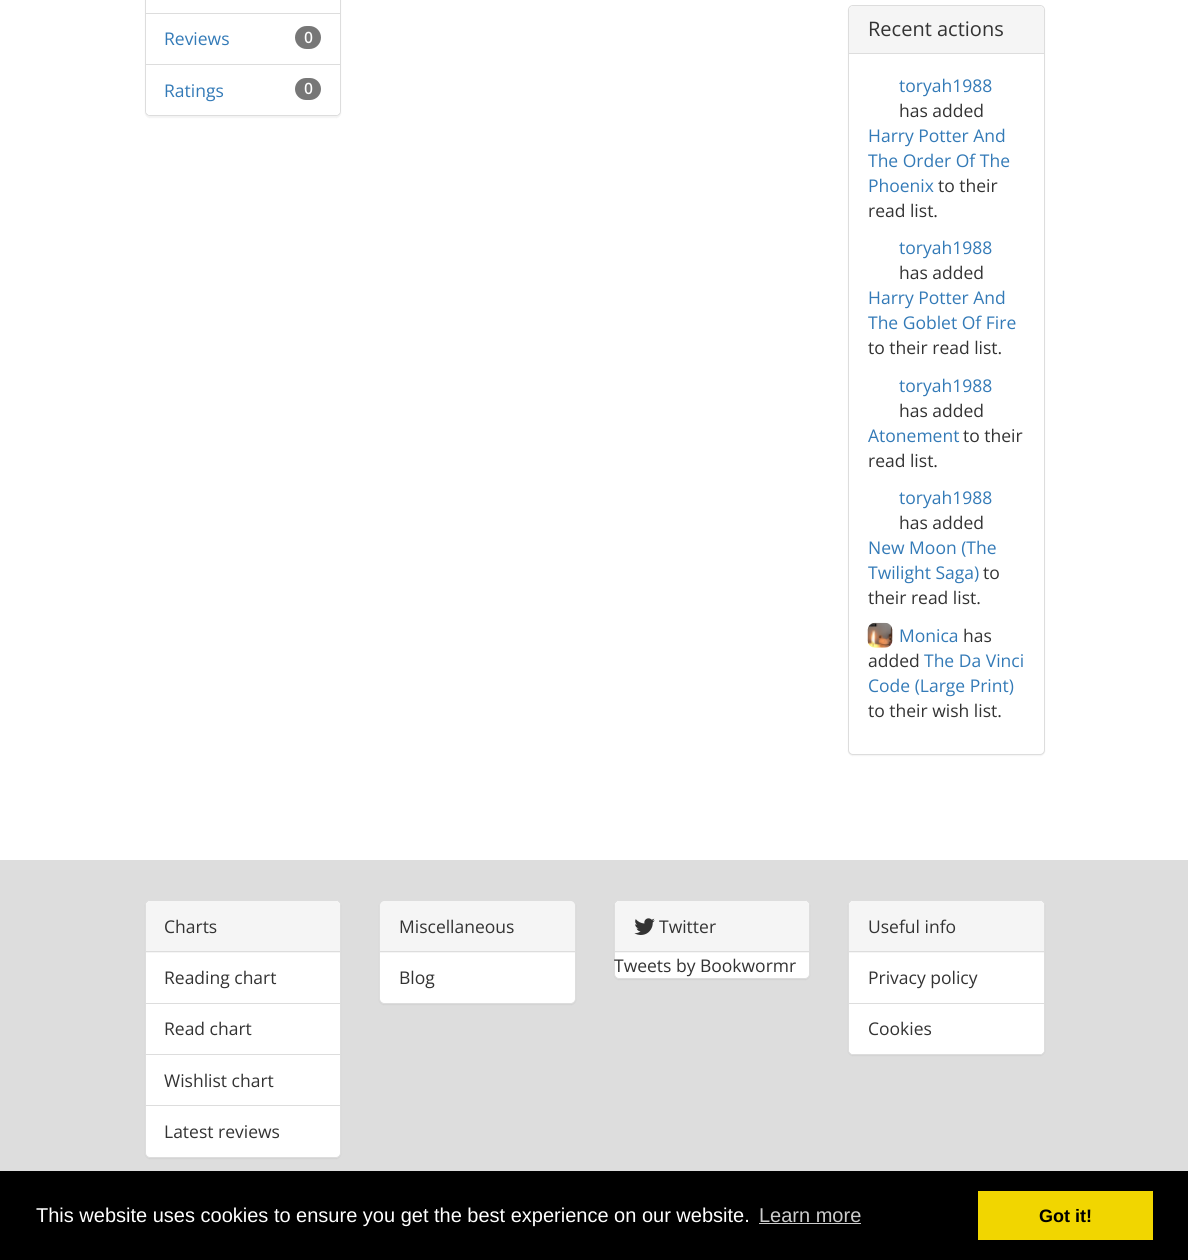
#include <cairo/cairo.h>
#include <math.h>
#include <stddef.h>


static void rounded_rect(cairo_t *cr, double x, double y, double w, double h, double r) {
  cairo_new_sub_path(cr);
  cairo_arc(cr, x + w - r, y + h - r, r, 0, M_PI / 2);
  cairo_arc(cr, x + r, y + h - r, r, M_PI / 2, M_PI);
  cairo_arc(cr, x + r, y + r, r, M_PI, 1.5 * M_PI);
  cairo_arc(cr, x + w - r, y + r, r, 1.5 * M_PI, 2 * M_PI);
  cairo_close_path(cr);
}

static void draw_shadow(cairo_t *cr, double x, double y, double w, double h, double r, double blur, double alpha) {
  cairo_push_group_with_content(cr, CAIRO_CONTENT_ALPHA);
  cairo_set_operator(cr, CAIRO_OPERATOR_SOURCE);
  for (int i = 15; i >= -15 && fmin(w, h) + blur * i / 3 > 0; i -= 2) {
    double e = blur * i / 6;
    cairo_set_source_rgba(cr, 0, 0, 0, alpha * erfc((i - 1) / 8.5) / 2);
    rounded_rect(cr, x - e, y - e, w + 2 * e, h + 2 * e, fmax(0, fmin(r + e + blur * .6, fmin(w, h) / 2 + e)));
    cairo_fill(cr);
  }
  cairo_pattern_t *soft = cairo_pop_group(cr);
  cairo_mask(cr, soft);
  cairo_pattern_destroy(soft);
}

static void draw_image(cairo_t *cr, const char *path, double x, double y, double w, double h) {
  cairo_surface_t *image = cairo_image_surface_create_from_png(path);
  cairo_save(cr);
  cairo_set_source_surface(cr, image, x, y);
  cairo_rectangle(cr, x, y, w, h);
  cairo_fill(cr);
  cairo_restore(cr);
  cairo_surface_destroy(image);
}

static void draw(cairo_t *cr) {
  cairo_set_source_rgb(cr, 1, 1, 1);
  cairo_paint(cr);
  cairo_set_source_rgb(cr, 0, 0, 0);
  draw_shadow(cr, 145, -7, 196, 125, 5, 0.5, 0.05);
  cairo_set_source_rgb(cr, 1, 1, 1);
  rounded_rect(cr, 145.5, -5.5, 195, 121, 4.5);
  cairo_fill_preserve(cr);
  cairo_set_source_rgb(cr, 221 / 255.0, 221 / 255.0, 221 / 255.0);
  cairo_set_line_width(cr, 1);
  cairo_stroke(cr);
  cairo_rectangle(cr, 146, 13, 194, 1);
  cairo_fill(cr);
  cairo_set_source_rgb(cr, 119 / 255.0, 119 / 255.0, 119 / 255.0);
  rounded_rect(cr, 295, 26, 26, 23, 11.5);
  cairo_fill(cr);
  cairo_set_source_rgb(cr, 1, 1, 1);
  cairo_new_path(cr);
  cairo_move_to(cr, 146, 64);
  cairo_line_to(cr, 340, 64);
  cairo_line_to(cr, 340, 111);
  cairo_curve_to(cr, 340, 113, 338, 115, 336, 115);
  cairo_line_to(cr, 150, 115);
  cairo_curve_to(cr, 148, 115, 146, 113, 146, 111);
  cairo_close_path(cr);
  cairo_fill(cr);
  cairo_set_source_rgb(cr, 221 / 255.0, 221 / 255.0, 221 / 255.0);
  cairo_rectangle(cr, 146, 64, 194, 1);
  cairo_fill(cr);
  cairo_set_source_rgb(cr, 119 / 255.0, 119 / 255.0, 119 / 255.0);
  rounded_rect(cr, 295, 78, 26, 22, 11);
  cairo_fill(cr);
  cairo_set_source_rgb(cr, 0, 0, 0);
  draw_shadow(cr, 848, 6, 197, 750, 5, 0.5, 0.05);
  cairo_set_source_rgb(cr, 1, 1, 1);
  rounded_rect(cr, 848.5, 5.5, 196, 749, 4.5);
  cairo_fill_preserve(cr);
  cairo_set_source_rgb(cr, 221 / 255.0, 221 / 255.0, 221 / 255.0);
  cairo_stroke(cr);
  cairo_set_source_rgb(cr, 245 / 255.0, 245 / 255.0, 245 / 255.0);
  cairo_new_path(cr);
  cairo_move_to(cr, 853, 6);
  cairo_line_to(cr, 1040, 6);
  cairo_curve_to(cr, 1042, 6, 1044, 8, 1044, 10);
  cairo_line_to(cr, 1044, 54);
  cairo_line_to(cr, 849, 54);
  cairo_line_to(cr, 849, 10);
  cairo_curve_to(cr, 849, 8, 851, 6, 853, 6);
  cairo_close_path(cr);
  cairo_fill(cr);
  cairo_set_source_rgb(cr, 221 / 255.0, 221 / 255.0, 221 / 255.0);
  cairo_rectangle(cr, 849, 53, 195, 1);
  cairo_fill(cr);
  draw_image(cr, "images/1.png", 867, 622, 26, 26);
  cairo_rectangle(cr, 0, 860, 1188, 311);
  cairo_fill(cr);
  cairo_set_source_rgb(cr, 0, 0, 0);
  draw_shadow(cr, 145, 901, 196, 258, 5, 0.5, 0.05);
  cairo_set_source_rgb(cr, 1, 1, 1);
  rounded_rect(cr, 145.5, 900.5, 195, 257, 4.5);
  cairo_fill_preserve(cr);
  cairo_set_source_rgb(cr, 221 / 255.0, 221 / 255.0, 221 / 255.0);
  cairo_stroke(cr);
  cairo_set_source_rgb(cr, 245 / 255.0, 245 / 255.0, 245 / 255.0);
  cairo_new_path(cr);
  cairo_move_to(cr, 150, 901);
  cairo_line_to(cr, 336, 901);
  cairo_curve_to(cr, 338, 901, 340, 903, 340, 905);
  cairo_line_to(cr, 340, 953);
  cairo_line_to(cr, 146, 953);
  cairo_line_to(cr, 146, 905);
  cairo_curve_to(cr, 146, 903, 148, 901, 150, 901);
  cairo_close_path(cr);
  cairo_fill(cr);
  cairo_set_source_rgb(cr, 221 / 255.0, 221 / 255.0, 221 / 255.0);
  cairo_rectangle(cr, 146, 951, 194, 1);
  cairo_fill(cr);
  cairo_rectangle(cr, 146, 1003, 194, 1);
  cairo_fill(cr);
  cairo_rectangle(cr, 146, 1054, 194, 1);
  cairo_fill(cr);
  cairo_rectangle(cr, 146, 1105, 194, 1);
  cairo_fill(cr);
  cairo_set_source_rgb(cr, 0, 0, 0);
  draw_shadow(cr, 379, 901, 197, 104, 5, 0.5, 0.05);
  rounded_rect(cr, 379.5, 900.5, 196, 103, 4.5);
  cairo_set_source_rgb(cr, 221 / 255.0, 221 / 255.0, 221 / 255.0);
  cairo_stroke(cr);
  cairo_set_source_rgb(cr, 245 / 255.0, 245 / 255.0, 245 / 255.0);
  cairo_new_path(cr);
  cairo_move_to(cr, 384, 901);
  cairo_line_to(cr, 571, 901);
  cairo_curve_to(cr, 573, 901, 575, 903, 575, 905);
  cairo_line_to(cr, 575, 953);
  cairo_line_to(cr, 380, 953);
  cairo_line_to(cr, 380, 905);
  cairo_curve_to(cr, 380, 903, 382, 901, 384, 901);
  cairo_close_path(cr);
  cairo_fill(cr);
  cairo_set_source_rgb(cr, 221 / 255.0, 221 / 255.0, 221 / 255.0);
  cairo_rectangle(cr, 380, 951, 195, 1);
  cairo_fill(cr);
  cairo_set_source_rgb(cr, 1, 1, 1);
  cairo_new_path(cr);
  cairo_move_to(cr, 380, 953);
  cairo_line_to(cr, 575, 953);
  cairo_line_to(cr, 575, 999);
  cairo_curve_to(cr, 575, 1001, 573, 1003, 571, 1003);
  cairo_line_to(cr, 384, 1003);
  cairo_curve_to(cr, 382, 1003, 380, 1001, 380, 999);
  cairo_close_path(cr);
  cairo_fill(cr);
  cairo_set_source_rgb(cr, 0, 0, 0);
  draw_shadow(cr, 614, 901, 196, 79, 5, 0.5, 0.05);
  cairo_set_source_rgb(cr, 1, 1, 1);
  rounded_rect(cr, 614.5, 900.5, 195, 78, 4.5);
  cairo_fill_preserve(cr);
  cairo_set_source_rgb(cr, 221 / 255.0, 221 / 255.0, 221 / 255.0);
  cairo_stroke(cr);
  cairo_set_source_rgb(cr, 245 / 255.0, 245 / 255.0, 245 / 255.0);
  cairo_new_path(cr);
  cairo_move_to(cr, 619, 901);
  cairo_line_to(cr, 805, 901);
  cairo_curve_to(cr, 807, 901, 809, 903, 809, 905);
  cairo_line_to(cr, 809, 953);
  cairo_line_to(cr, 615, 953);
  cairo_line_to(cr, 615, 905);
  cairo_curve_to(cr, 615, 903, 617, 901, 619, 901);
  cairo_close_path(cr);
  cairo_fill(cr);
  cairo_set_source_rgb(cr, 221 / 255.0, 221 / 255.0, 221 / 255.0);
  cairo_rectangle(cr, 615, 951, 194, 1);
  cairo_fill(cr);
  draw_image(cr, "images/2.png", 634, 918, 21, 17);
  cairo_set_source_rgb(cr, 0, 0, 0);
  draw_shadow(cr, 848, 901, 197, 155, 5, 0.5, 0.05);
  cairo_set_source_rgb(cr, 1, 1, 1);
  rounded_rect(cr, 848.5, 900.5, 196, 154, 4.5);
  cairo_fill_preserve(cr);
  cairo_set_source_rgb(cr, 221 / 255.0, 221 / 255.0, 221 / 255.0);
  cairo_stroke(cr);
  cairo_set_source_rgb(cr, 245 / 255.0, 245 / 255.0, 245 / 255.0);
  cairo_new_path(cr);
  cairo_move_to(cr, 853, 901);
  cairo_line_to(cr, 1040, 901);
  cairo_curve_to(cr, 1042, 901, 1044, 903, 1044, 905);
  cairo_line_to(cr, 1044, 953);
  cairo_line_to(cr, 849, 953);
  cairo_line_to(cr, 849, 905);
  cairo_curve_to(cr, 849, 903, 851, 901, 853, 901);
  cairo_close_path(cr);
  cairo_fill(cr);
  cairo_set_source_rgb(cr, 221 / 255.0, 221 / 255.0, 221 / 255.0);
  cairo_rectangle(cr, 849, 951, 195, 1);
  cairo_fill(cr);
  cairo_set_source_rgb(cr, 1, 1, 1);
  cairo_new_path(cr);
  cairo_move_to(cr, 849, 1003);
  cairo_line_to(cr, 1044, 1003);
  cairo_line_to(cr, 1044, 1050);
  cairo_curve_to(cr, 1044, 1052, 1042, 1054, 1040, 1054);
  cairo_line_to(cr, 853, 1054);
  cairo_curve_to(cr, 851, 1054, 849, 1052, 849, 1050);
  cairo_close_path(cr);
  cairo_fill(cr);
  cairo_set_source_rgb(cr, 221 / 255.0, 221 / 255.0, 221 / 255.0);
  cairo_rectangle(cr, 849, 1003, 195, 1);
  cairo_fill(cr);
  cairo_set_source_rgb(cr, 0, 0, 0);
  cairo_rectangle(cr, 0, 1171, 1188, 89);
  cairo_fill(cr);
  cairo_set_source_rgb(cr, 204 / 255.0, 204 / 255.0, 204 / 255.0);
  cairo_rectangle(cr, 759, 1223, 102, 1);
  cairo_fill(cr);
  cairo_set_source_rgb(cr, 241 / 255.0, 214 / 255.0, 0);
  cairo_rectangle(cr, 978, 1191, 175, 49);
  cairo_fill(cr);
  cairo_select_font_face(cr, "Open Sans", CAIRO_FONT_SLANT_NORMAL, CAIRO_FONT_WEIGHT_NORMAL);
  cairo_set_font_size(cr, 17.5);
  cairo_set_source_rgb(cr, 51 / 255.0, 122 / 255.0, 183 / 255.0);
  cairo_move_to(cr, 164, 45);
  cairo_show_text(cr, "Reviews");
  cairo_select_font_face(cr, "Open Sans", CAIRO_FONT_SLANT_NORMAL, CAIRO_FONT_WEIGHT_BOLD);
  cairo_set_font_size(cr, 15);
  cairo_set_source_rgb(cr, 1, 1, 1);
  cairo_move_to(cr, 304, 43);
  cairo_show_text(cr, "0");
  cairo_select_font_face(cr, "Open Sans", CAIRO_FONT_SLANT_NORMAL, CAIRO_FONT_WEIGHT_NORMAL);
  cairo_set_font_size(cr, 17.5);
  cairo_set_source_rgb(cr, 51 / 255.0, 122 / 255.0, 183 / 255.0);
  cairo_move_to(cr, 164, 97);
  cairo_show_text(cr, "Ratings");
  cairo_select_font_face(cr, "Open Sans", CAIRO_FONT_SLANT_NORMAL, CAIRO_FONT_WEIGHT_BOLD);
  cairo_set_font_size(cr, 15);
  cairo_set_source_rgb(cr, 1, 1, 1);
  cairo_move_to(cr, 304, 94);
  cairo_show_text(cr, "0");
  cairo_select_font_face(cr, "Open Sans", CAIRO_FONT_SLANT_NORMAL, CAIRO_FONT_WEIGHT_NORMAL);
  cairo_set_font_size(cr, 20);
  cairo_set_source_rgb(cr, 51 / 255.0, 51 / 255.0, 51 / 255.0);
  cairo_move_to(cr, 868, 36);
  cairo_show_text(cr, "Recent actions");
  cairo_set_font_size(cr, 17.5);
  cairo_set_source_rgb(cr, 51 / 255.0, 122 / 255.0, 183 / 255.0);
  cairo_move_to(cr, 899, 92);
  cairo_show_text(cr, "toryah1988");
  cairo_set_source_rgb(cr, 51 / 255.0, 51 / 255.0, 51 / 255.0);
  cairo_move_to(cr, 899, 117);
  cairo_show_text(cr, "has added");
  cairo_set_source_rgb(cr, 51 / 255.0, 122 / 255.0, 183 / 255.0);
  cairo_move_to(cr, 868, 142);
  cairo_show_text(cr, "Harry Potter And");
  cairo_move_to(cr, 868, 167);
  cairo_show_text(cr, "The Order Of The");
  cairo_move_to(cr, 868, 192);
  cairo_show_text(cr, "Phoenix");
  cairo_set_source_rgb(cr, 51 / 255.0, 51 / 255.0, 51 / 255.0);
  cairo_move_to(cr, 938, 192);
  cairo_show_text(cr, "to their");
  cairo_move_to(cr, 868, 217);
  cairo_show_text(cr, "read list.");
  cairo_set_source_rgb(cr, 51 / 255.0, 122 / 255.0, 183 / 255.0);
  cairo_move_to(cr, 899, 254);
  cairo_show_text(cr, "toryah1988");
  cairo_set_source_rgb(cr, 51 / 255.0, 51 / 255.0, 51 / 255.0);
  cairo_move_to(cr, 899, 279);
  cairo_show_text(cr, "has added");
  cairo_set_source_rgb(cr, 51 / 255.0, 122 / 255.0, 183 / 255.0);
  cairo_move_to(cr, 868, 304);
  cairo_show_text(cr, "Harry Potter And");
  cairo_move_to(cr, 868, 329);
  cairo_show_text(cr, "The Goblet Of Fire");
  cairo_set_source_rgb(cr, 51 / 255.0, 51 / 255.0, 51 / 255.0);
  cairo_move_to(cr, 868, 354);
  cairo_show_text(cr, "to their read list.");
  cairo_set_source_rgb(cr, 51 / 255.0, 122 / 255.0, 183 / 255.0);
  cairo_move_to(cr, 899, 392);
  cairo_show_text(cr, "toryah1988");
  cairo_set_source_rgb(cr, 51 / 255.0, 51 / 255.0, 51 / 255.0);
  cairo_move_to(cr, 899, 417);
  cairo_show_text(cr, "has added");
  cairo_set_source_rgb(cr, 51 / 255.0, 122 / 255.0, 183 / 255.0);
  cairo_move_to(cr, 868, 442);
  cairo_show_text(cr, "Atonement");
  cairo_set_source_rgb(cr, 51 / 255.0, 51 / 255.0, 51 / 255.0);
  cairo_move_to(cr, 963, 442);
  cairo_show_text(cr, "to their");
  cairo_move_to(cr, 868, 467);
  cairo_show_text(cr, "read list.");
  cairo_set_source_rgb(cr, 51 / 255.0, 122 / 255.0, 183 / 255.0);
  cairo_move_to(cr, 899, 504);
  cairo_show_text(cr, "toryah1988");
  cairo_set_source_rgb(cr, 51 / 255.0, 51 / 255.0, 51 / 255.0);
  cairo_move_to(cr, 899, 529);
  cairo_show_text(cr, "has added");
  cairo_set_source_rgb(cr, 51 / 255.0, 122 / 255.0, 183 / 255.0);
  cairo_move_to(cr, 868, 554);
  cairo_show_text(cr, "New Moon (The");
  cairo_move_to(cr, 868, 579);
  cairo_show_text(cr, "Twilight Saga)");
  cairo_set_source_rgb(cr, 51 / 255.0, 51 / 255.0, 51 / 255.0);
  cairo_move_to(cr, 983, 579);
  cairo_show_text(cr, "to");
  cairo_move_to(cr, 868, 604);
  cairo_show_text(cr, "their read list.");
  cairo_set_source_rgb(cr, 51 / 255.0, 122 / 255.0, 183 / 255.0);
  cairo_move_to(cr, 899, 642);
  cairo_show_text(cr, "Monica");
  cairo_set_source_rgb(cr, 51 / 255.0, 51 / 255.0, 51 / 255.0);
  cairo_move_to(cr, 963, 642);
  cairo_show_text(cr, "has");
  cairo_move_to(cr, 868, 667);
  cairo_show_text(cr, "added");
  cairo_set_source_rgb(cr, 51 / 255.0, 122 / 255.0, 183 / 255.0);
  cairo_move_to(cr, 924, 667);
  cairo_show_text(cr, "The Da Vinci");
  cairo_move_to(cr, 868, 692);
  cairo_show_text(cr, "Code (Large Print)");
  cairo_set_source_rgb(cr, 51 / 255.0, 51 / 255.0, 51 / 255.0);
  cairo_move_to(cr, 868, 717);
  cairo_show_text(cr, "to their wish list.");
  cairo_move_to(cr, 164, 933);
  cairo_show_text(cr, "Charts");
  cairo_move_to(cr, 164, 984);
  cairo_show_text(cr, "Reading chart");
  cairo_move_to(cr, 164, 1035);
  cairo_show_text(cr, "Read chart");
  cairo_move_to(cr, 164, 1087);
  cairo_show_text(cr, "Wishlist chart");
  cairo_move_to(cr, 164, 1138);
  cairo_show_text(cr, "Latest reviews");
  cairo_move_to(cr, 399, 933);
  cairo_show_text(cr, "Miscellaneous");
  cairo_move_to(cr, 399, 984);
  cairo_show_text(cr, "Blog");
  cairo_move_to(cr, 659, 933);
  cairo_show_text(cr, "Twitter");
  cairo_move_to(cr, 614, 972);
  cairo_show_text(cr, "Tweets by Bookwormr");
  cairo_move_to(cr, 868, 933);
  cairo_show_text(cr, "Useful info");
  cairo_move_to(cr, 868, 984);
  cairo_show_text(cr, "Privacy policy");
  cairo_move_to(cr, 868, 1035);
  cairo_show_text(cr, "Cookies");
  cairo_select_font_face(cr, "Liberation Sans", CAIRO_FONT_SLANT_NORMAL, CAIRO_FONT_WEIGHT_NORMAL);
  cairo_set_font_size(cr, 20);
  cairo_set_source_rgb(cr, 1, 1, 1);
  cairo_move_to(cr, 36, 1222);
  cairo_show_text(cr, "This website uses cookies to ensure you get the best experience on our website.");
  cairo_set_source_rgb(cr, 204 / 255.0, 204 / 255.0, 204 / 255.0);
  cairo_move_to(cr, 759, 1222);
  cairo_show_text(cr, "Learn more");
  cairo_select_font_face(cr, "Liberation Sans", CAIRO_FONT_SLANT_NORMAL, CAIRO_FONT_WEIGHT_BOLD);
  cairo_set_font_size(cr, 18);
  cairo_set_source_rgb(cr, 0, 0, 0);
  cairo_move_to(cr, 1039, 1222);
  cairo_show_text(cr, "Got it!");
}

int main(void) {
  cairo_surface_t *surface = cairo_image_surface_create(CAIRO_FORMAT_RGB24, 1188, 1260);
  cairo_t *cr = cairo_create(surface);
  cairo_font_options_t *options = cairo_font_options_create();
  cairo_font_options_set_hint_metrics(options, CAIRO_HINT_METRICS_OFF);
  cairo_font_options_set_hint_style(options, CAIRO_HINT_STYLE_NONE);
  cairo_set_font_options(cr, options);
  cairo_set_miter_limit(cr, 4);
  draw(cr);
  cairo_surface_write_to_png(surface, "out.png");
  cairo_font_options_destroy(options);
  cairo_destroy(cr);
  cairo_surface_destroy(surface);
  return 0;
}
